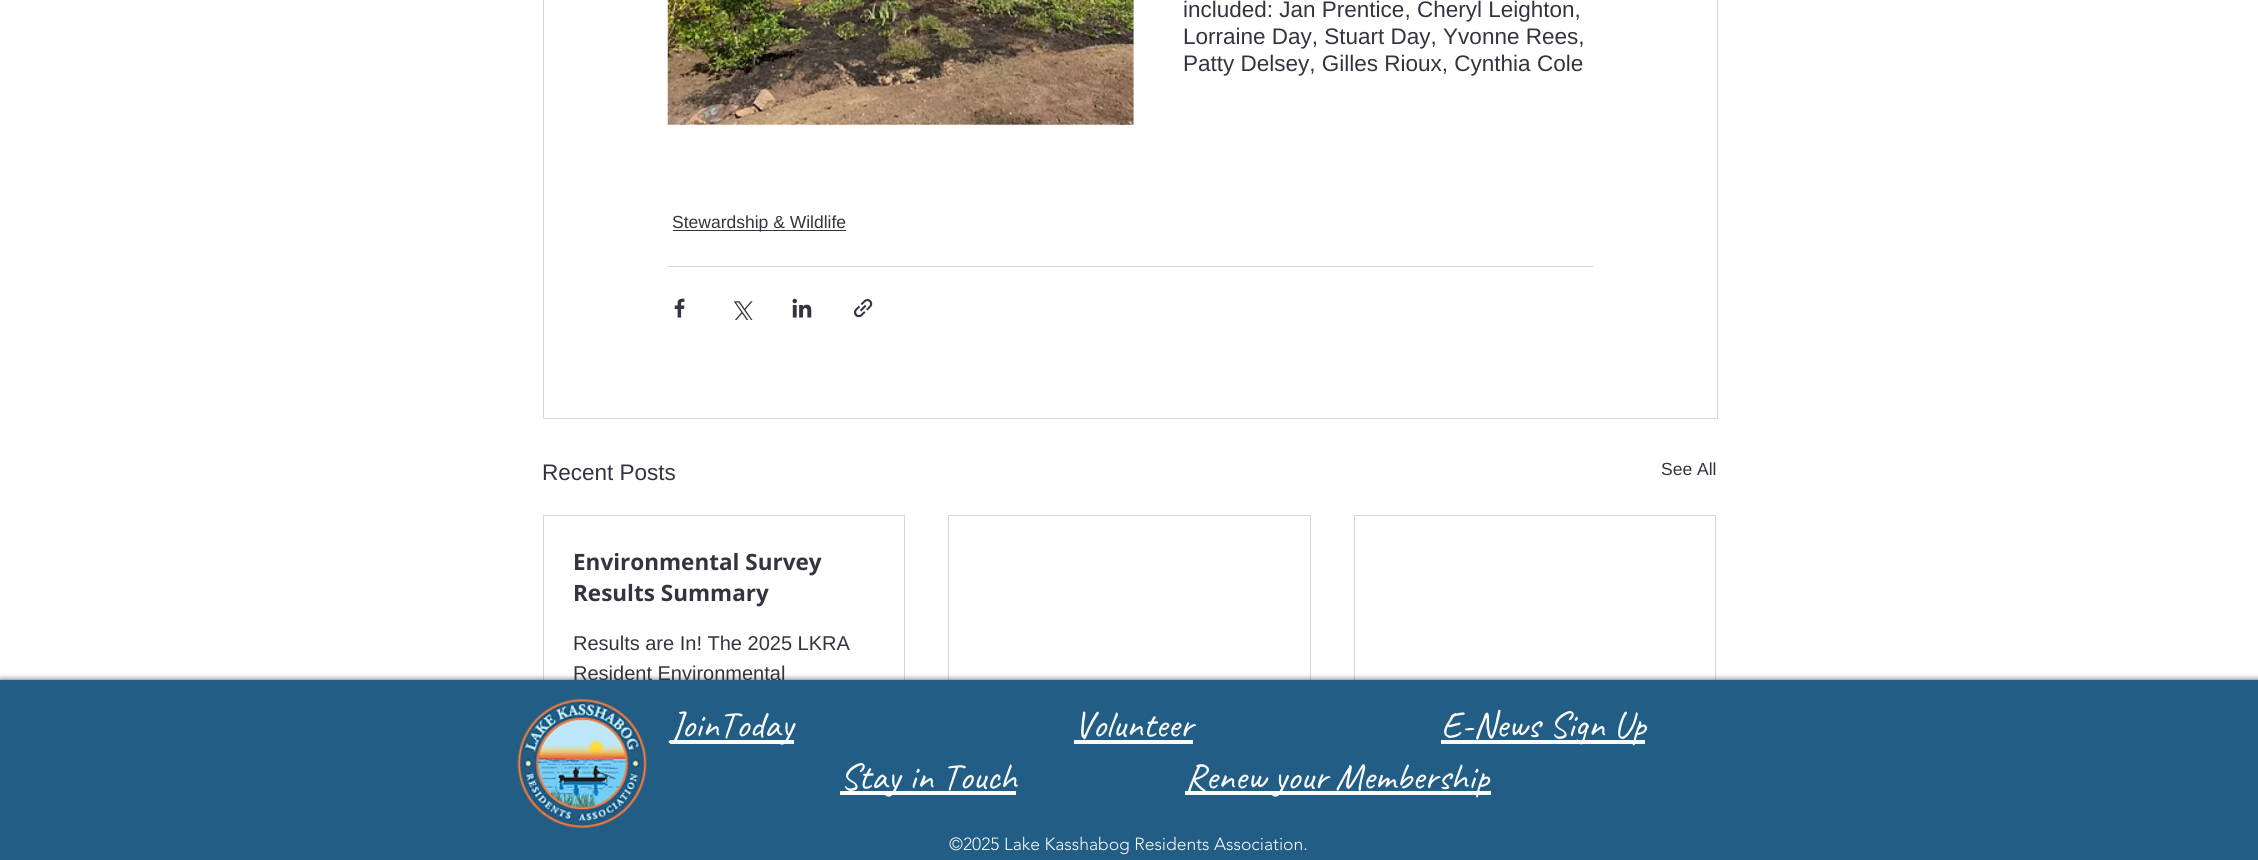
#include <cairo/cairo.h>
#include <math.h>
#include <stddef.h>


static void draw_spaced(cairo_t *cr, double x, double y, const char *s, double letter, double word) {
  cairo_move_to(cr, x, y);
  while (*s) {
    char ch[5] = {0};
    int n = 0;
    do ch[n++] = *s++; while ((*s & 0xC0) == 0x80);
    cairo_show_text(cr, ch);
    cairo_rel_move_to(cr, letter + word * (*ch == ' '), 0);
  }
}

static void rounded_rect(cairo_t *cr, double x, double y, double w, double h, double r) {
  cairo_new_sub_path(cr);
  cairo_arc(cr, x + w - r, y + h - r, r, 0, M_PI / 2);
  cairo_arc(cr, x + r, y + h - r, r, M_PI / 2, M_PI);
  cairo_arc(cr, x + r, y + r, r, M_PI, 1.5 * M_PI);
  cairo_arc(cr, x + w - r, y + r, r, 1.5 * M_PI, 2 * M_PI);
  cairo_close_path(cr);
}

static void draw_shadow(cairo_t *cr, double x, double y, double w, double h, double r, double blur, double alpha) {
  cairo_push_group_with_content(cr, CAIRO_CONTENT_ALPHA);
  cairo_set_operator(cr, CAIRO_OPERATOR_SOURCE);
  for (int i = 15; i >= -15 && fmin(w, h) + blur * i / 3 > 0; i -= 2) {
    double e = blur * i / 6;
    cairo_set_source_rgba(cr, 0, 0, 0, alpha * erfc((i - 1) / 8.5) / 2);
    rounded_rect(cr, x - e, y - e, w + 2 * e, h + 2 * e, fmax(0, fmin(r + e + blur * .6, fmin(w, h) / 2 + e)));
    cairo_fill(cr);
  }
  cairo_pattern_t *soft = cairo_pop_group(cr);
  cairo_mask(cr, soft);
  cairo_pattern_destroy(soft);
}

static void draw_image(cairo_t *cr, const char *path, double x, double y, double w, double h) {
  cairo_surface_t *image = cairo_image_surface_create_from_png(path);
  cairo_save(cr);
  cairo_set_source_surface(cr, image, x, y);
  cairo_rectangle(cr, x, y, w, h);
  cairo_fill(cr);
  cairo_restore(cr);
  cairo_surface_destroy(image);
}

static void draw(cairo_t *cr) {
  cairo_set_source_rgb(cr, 1, 1, 1);
  cairo_paint(cr);
  cairo_rectangle(cr, 543.5, -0.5, 1174, 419);
  cairo_set_source_rgb(cr, 214 / 255.0, 215 / 255.0, 222 / 255.0);
  cairo_set_line_width(cr, 1);
  cairo_stroke(cr);
  draw_image(cr, "images/1.png", 667, 0, 467, 126);
  cairo_set_source_rgb(cr, 51 / 255.0, 52 / 255.0, 63 / 255.0);
  cairo_rectangle(cr, 673, 230, 173, 1);
  cairo_fill(cr);
  cairo_set_source_rgb(cr, 214 / 255.0, 214 / 255.0, 217 / 255.0);
  cairo_rectangle(cr, 668, 266, 925, 1);
  cairo_fill(cr);
  draw_image(cr, "images/2.png", 674, 298, 11, 20);
  draw_image(cr, "images/3.png", 733, 301, 20, 19);
  draw_image(cr, "images/4.png", 792, 298, 20, 20);
  draw_image(cr, "images/5.png", 854, 299, 19, 19);
  cairo_rectangle(cr, 543.5, 515.5, 361, 334);
  cairo_set_source_rgb(cr, 214 / 255.0, 215 / 255.0, 222 / 255.0);
  cairo_stroke(cr);
  cairo_rectangle(cr, 948.5, 515.5, 362, 334);
  cairo_stroke(cr);
  cairo_rectangle(cr, 1354.5, 515.5, 361, 334);
  cairo_stroke(cr);
  cairo_set_source_rgb(cr, 0, 0, 0);
  draw_shadow(cr, 0, 680, 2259, 180, 0, 3, 0.7);
  cairo_select_font_face(cr, "Liberation Sans", CAIRO_FONT_SLANT_NORMAL, CAIRO_FONT_WEIGHT_NORMAL);
  cairo_set_font_size(cr, 22.5);
  cairo_set_source_rgb(cr, 51 / 255.0, 52 / 255.0, 63 / 255.0);
  cairo_move_to(cr, 1183, 17);
  cairo_show_text(cr, "included: Jan Prentice, Cheryl Leighton,");
  cairo_move_to(cr, 1183, 44);
  cairo_show_text(cr, "Lorraine Day, Stuart Day, Yvonne Rees,");
  cairo_move_to(cr, 1183, 71);
  cairo_show_text(cr, "Patty Delsey, Gilles Rioux, Cynthia Cole");
  cairo_set_font_size(cr, 17.5);
  cairo_move_to(cr, 672, 228);
  cairo_show_text(cr, "Stewardship & Wildlife");
  cairo_set_font_size(cr, 22.5);
  cairo_move_to(cr, 542, 480);
  cairo_show_text(cr, "Recent Posts");
  cairo_set_font_size(cr, 17.5);
  cairo_move_to(cr, 1661, 475);
  cairo_show_text(cr, "See All");
  cairo_select_font_face(cr, "Open Sans", CAIRO_FONT_SLANT_NORMAL, CAIRO_FONT_WEIGHT_BOLD);
  cairo_set_font_size(cr, 22.5);
  cairo_move_to(cr, 573, 570);
  cairo_show_text(cr, "Environmental Survey");
  cairo_move_to(cr, 573, 601);
  cairo_show_text(cr, "Results Summary");
  cairo_select_font_face(cr, "Liberation Sans", CAIRO_FONT_SLANT_NORMAL, CAIRO_FONT_WEIGHT_NORMAL);
  cairo_set_font_size(cr, 20);
  cairo_move_to(cr, 573, 650);
  cairo_show_text(cr, "Results are In! The 2025 LKRA");
  cairo_move_to(cr, 573, 680);
  cairo_show_text(cr, "Resident Environmental");
  cairo_set_source_rgb(cr, 33 / 255.0, 93 / 255.0, 132 / 255.0);
  cairo_rectangle(cr, 0, 680, 2258, 180);
  cairo_fill(cr);
  draw_image(cr, "images/6.png", 517, 699, 130, 129);
  cairo_set_source_rgb(cr, 250 / 255.0, 250 / 255.0, 250 / 255.0);
  cairo_rectangle(cr, 670, 740, 124, 4);
  cairo_fill(cr);
  cairo_select_font_face(cr, "Caveat", CAIRO_FONT_SLANT_NORMAL, CAIRO_FONT_WEIGHT_NORMAL);
  cairo_set_font_size(cr, 37.5);
  cairo_move_to(cr, 670, 737);
  cairo_show_text(cr, "JoinToday");
  cairo_move_to(cr, 1074, 737);
  cairo_show_text(cr, "Volunteer");
  cairo_rectangle(cr, 1074, 740, 119, 4);
  cairo_fill(cr);
  cairo_rectangle(cr, 1441, 740, 204, 4);
  cairo_fill(cr);
  cairo_move_to(cr, 1441, 737);
  cairo_show_text(cr, "E-News Sign Up");
  cairo_rectangle(cr, 840, 791, 176, 4);
  cairo_fill(cr);
  cairo_move_to(cr, 840, 789);
  cairo_show_text(cr, "Stay in Touch");
  cairo_rectangle(cr, 1185, 791, 306, 4);
  cairo_fill(cr);
  draw_spaced(cr, 1185, 789, "Renew your Membership", 0, -1);
  cairo_select_font_face(cr, "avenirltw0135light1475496 Light", CAIRO_FONT_SLANT_NORMAL, CAIRO_FONT_WEIGHT_NORMAL);
  cairo_set_font_size(cr, 17.5);
  cairo_move_to(cr, 949, 850);
  cairo_show_text(cr, "©2025 Lake Kasshabog Residents Association.");
}

int main(void) {
  cairo_surface_t *surface = cairo_image_surface_create(CAIRO_FORMAT_RGB24, 2258, 860);
  cairo_t *cr = cairo_create(surface);
  cairo_font_options_t *options = cairo_font_options_create();
  cairo_font_options_set_hint_metrics(options, CAIRO_HINT_METRICS_OFF);
  cairo_font_options_set_hint_style(options, CAIRO_HINT_STYLE_NONE);
  cairo_set_font_options(cr, options);
  cairo_set_miter_limit(cr, 4);
  draw(cr);
  cairo_surface_write_to_png(surface, "out.png");
  cairo_font_options_destroy(options);
  cairo_destroy(cr);
  cairo_surface_destroy(surface);
  return 0;
}
